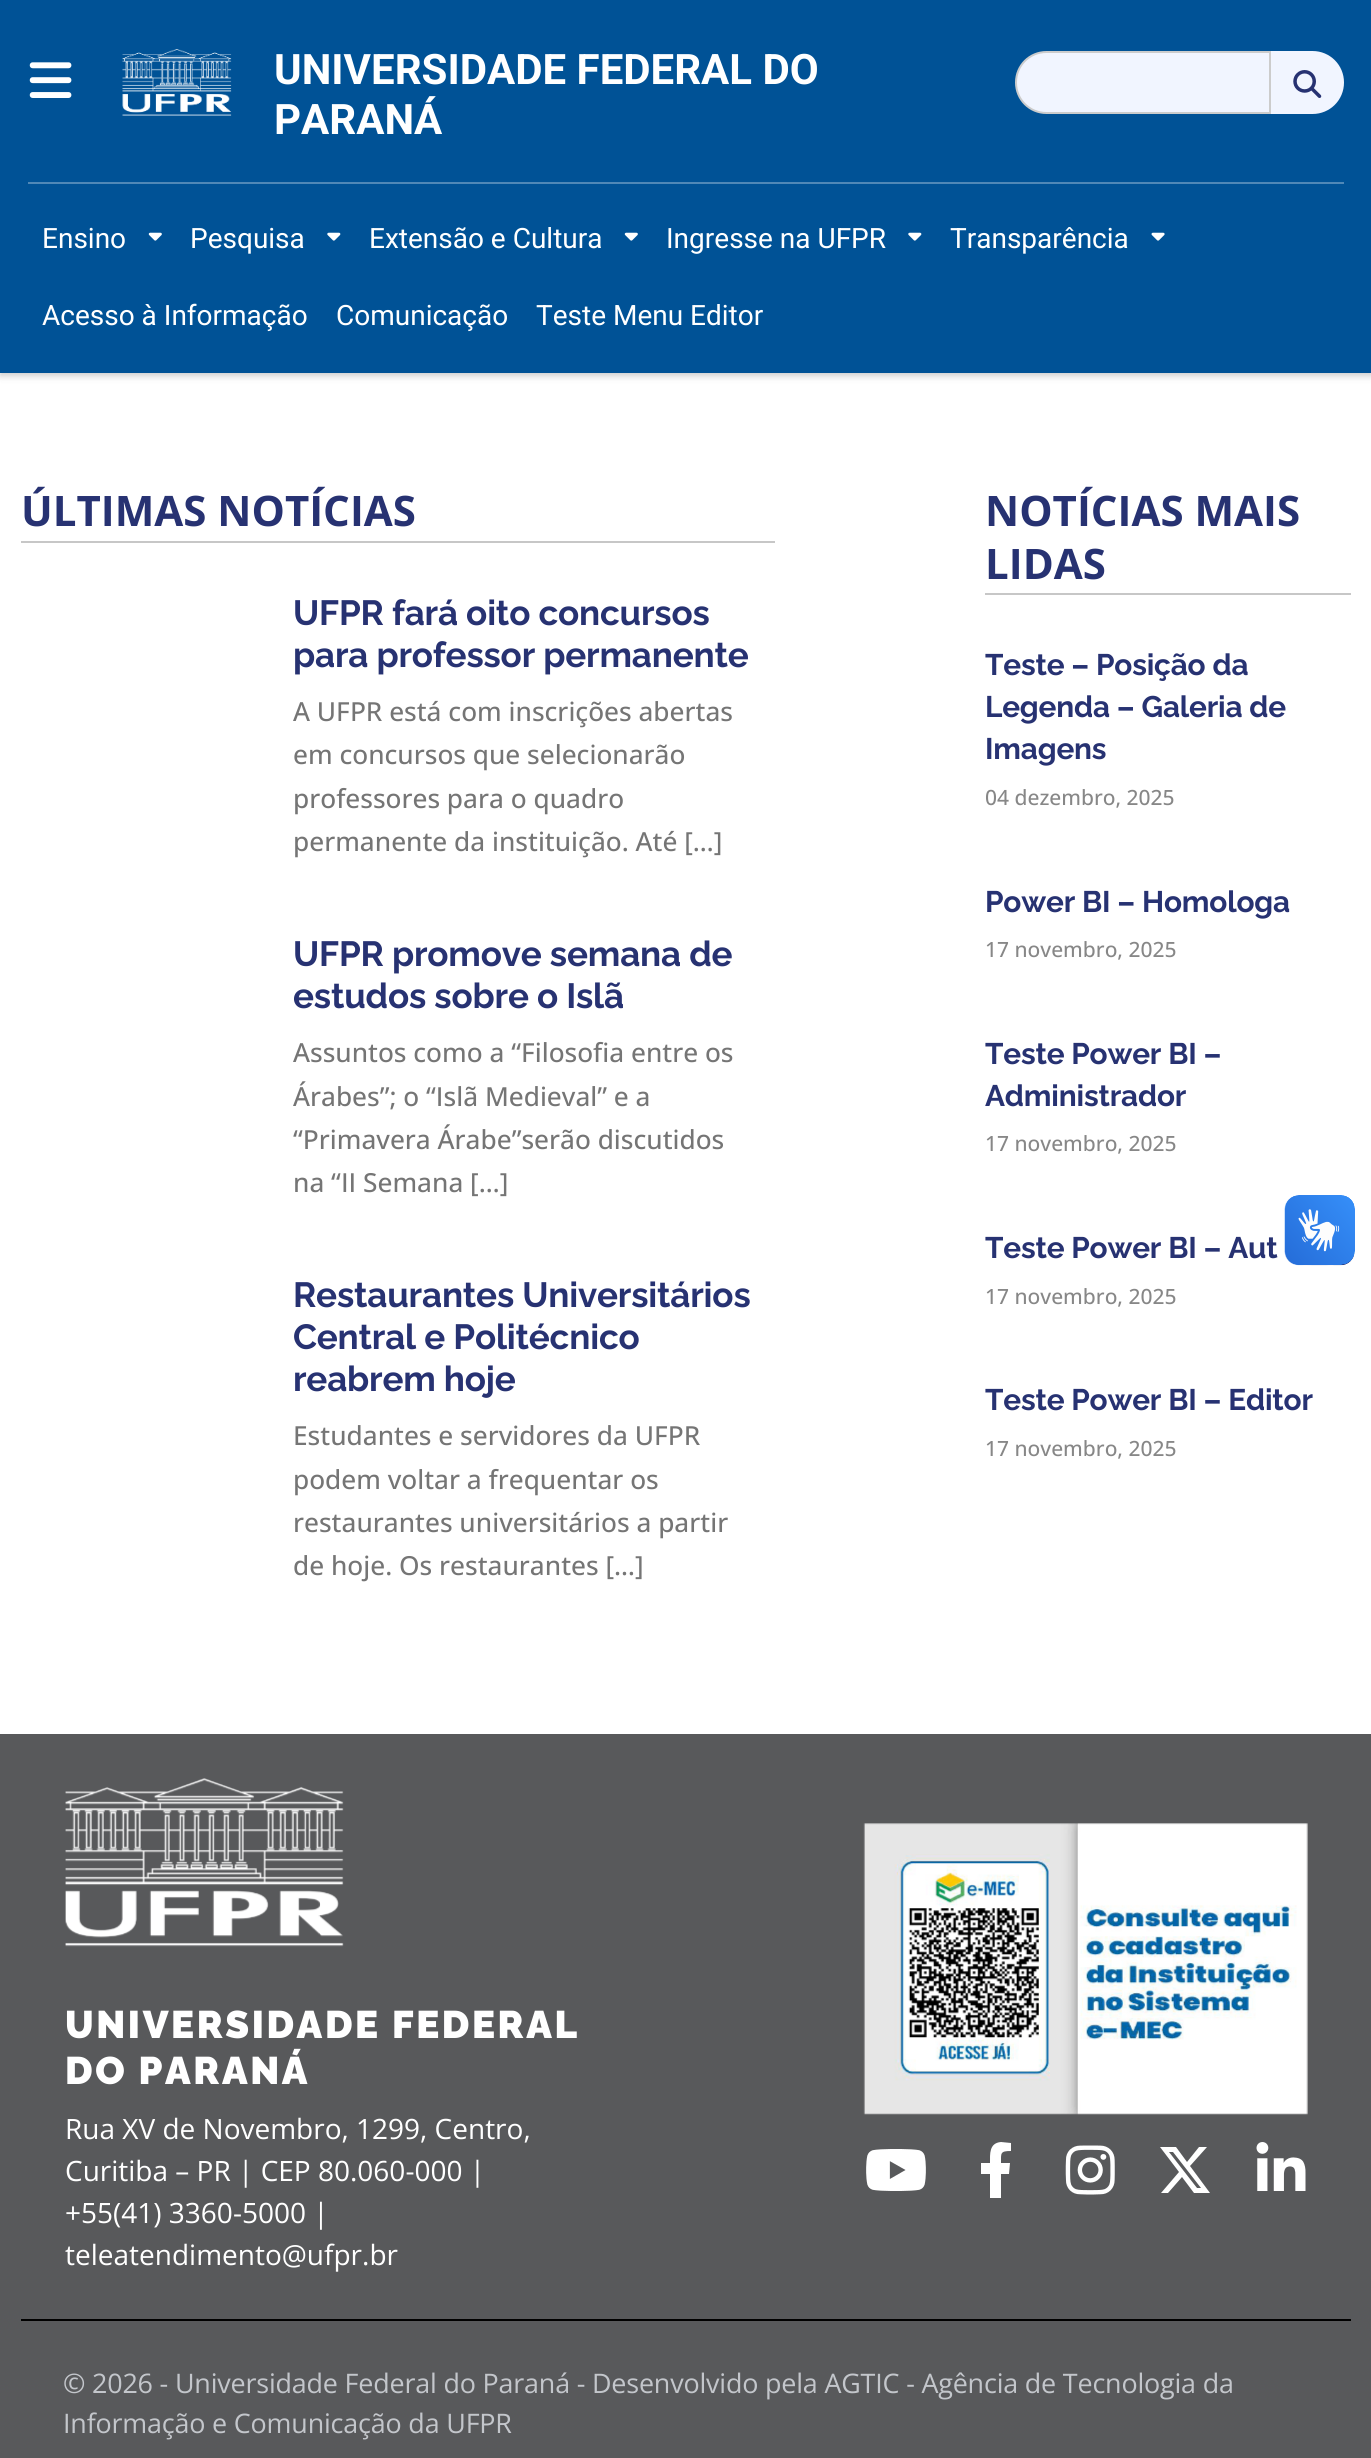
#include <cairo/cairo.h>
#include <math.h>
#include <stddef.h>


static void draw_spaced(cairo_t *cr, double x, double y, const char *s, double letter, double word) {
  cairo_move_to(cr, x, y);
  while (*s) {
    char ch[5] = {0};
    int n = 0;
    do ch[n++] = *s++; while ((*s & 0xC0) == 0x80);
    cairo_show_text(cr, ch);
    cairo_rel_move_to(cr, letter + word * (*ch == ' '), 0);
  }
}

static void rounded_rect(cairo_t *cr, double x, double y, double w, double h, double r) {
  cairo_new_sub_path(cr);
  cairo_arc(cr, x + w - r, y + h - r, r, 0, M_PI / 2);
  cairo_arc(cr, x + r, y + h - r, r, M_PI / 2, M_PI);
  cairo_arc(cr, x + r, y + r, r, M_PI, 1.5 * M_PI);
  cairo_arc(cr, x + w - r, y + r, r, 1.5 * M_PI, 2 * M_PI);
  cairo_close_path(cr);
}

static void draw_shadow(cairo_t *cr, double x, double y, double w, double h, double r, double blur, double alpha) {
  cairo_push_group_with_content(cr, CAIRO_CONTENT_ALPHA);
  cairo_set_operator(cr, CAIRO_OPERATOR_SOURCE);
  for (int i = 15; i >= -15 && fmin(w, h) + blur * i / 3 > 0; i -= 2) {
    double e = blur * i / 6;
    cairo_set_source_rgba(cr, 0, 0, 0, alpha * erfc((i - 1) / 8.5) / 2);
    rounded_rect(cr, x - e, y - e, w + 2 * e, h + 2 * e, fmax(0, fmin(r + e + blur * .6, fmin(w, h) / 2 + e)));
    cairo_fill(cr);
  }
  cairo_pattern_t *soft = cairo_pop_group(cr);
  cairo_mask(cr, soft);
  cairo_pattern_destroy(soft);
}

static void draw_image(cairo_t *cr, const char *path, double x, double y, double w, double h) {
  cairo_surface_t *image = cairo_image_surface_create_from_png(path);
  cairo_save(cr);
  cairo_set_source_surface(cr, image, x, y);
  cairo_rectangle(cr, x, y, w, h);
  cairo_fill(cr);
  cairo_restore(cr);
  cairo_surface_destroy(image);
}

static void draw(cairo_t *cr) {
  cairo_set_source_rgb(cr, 1, 1, 1);
  cairo_paint(cr);
  cairo_set_source_rgb(cr, 0, 0, 0);
  draw_shadow(cr, 0, 4, 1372, 372, 0, 3.5, 0.2);
  cairo_set_source_rgb(cr, 0, 82 / 255.0, 150 / 255.0);
  cairo_rectangle(cr, 0, 0, 1371, 373);
  cairo_fill(cr);
  draw_image(cr, "images/1.png", 29, 62, 43, 36);
  draw_image(cr, "images/2.png", 122, 49, 110, 67);
  cairo_set_source_rgb(cr, 241 / 255.0, 245 / 255.0, 1);
  cairo_new_path(cr);
  cairo_move_to(cr, 1046.5, 52);
  cairo_line_to(cr, 1270, 52);
  cairo_line_to(cr, 1270, 113);
  cairo_line_to(cr, 1046.5, 113);
  cairo_curve_to(cr, 1029.5, 113, 1016, 99.5, 1016, 82.5);
  cairo_curve_to(cr, 1016, 65.5, 1029.5, 52, 1046.5, 52);
  cairo_close_path(cr);
  cairo_fill_preserve(cr);
  cairo_set_source_rgb(cr, 204 / 255.0, 204 / 255.0, 204 / 255.0);
  cairo_stroke(cr);
  cairo_set_source_rgb(cr, 241 / 255.0, 245 / 255.0, 1);
  cairo_new_path(cr);
  cairo_move_to(cr, 1271, 51);
  cairo_line_to(cr, 1312.5, 51);
  cairo_curve_to(cr, 1330, 51, 1344, 65, 1344, 82.5);
  cairo_curve_to(cr, 1344, 100, 1330, 114, 1312.5, 114);
  cairo_line_to(cr, 1271, 114);
  cairo_close_path(cr);
  cairo_fill(cr);
  draw_image(cr, "images/3.png", 1293, 70, 29, 28);
  cairo_set_source_rgb(cr, 80 / 255.0, 136 / 255.0, 183 / 255.0);
  cairo_rectangle(cr, 28, 182, 1316, 2);
  cairo_fill(cr);
  draw_image(cr, "images/4.png", 148, 232, 14, 9);
  draw_image(cr, "images/5.png", 327, 232, 14, 9);
  draw_image(cr, "images/4.png", 624, 232, 14, 9);
  draw_image(cr, "images/5.png", 908, 232, 14, 9);
  draw_image(cr, "images/6.png", 1151, 232, 14, 9);
  cairo_set_source_rgb(cr, 199 / 255.0, 199 / 255.0, 199 / 255.0);
  cairo_rectangle(cr, 21, 541, 754, 2);
  cairo_fill(cr);
  cairo_rectangle(cr, 985, 593, 366, 2);
  cairo_fill(cr);
  draw_image(cr, "images/7.png", 1284, 1195, 71, 71);
  draw_image(cr, "images/8.png", 1285, 1195, 70, 70);
  cairo_set_source_rgb(cr, 88 / 255.0, 89 / 255.0, 91 / 255.0);
  cairo_rectangle(cr, 0, 1734, 1371, 724);
  cairo_fill(cr);
  draw_image(cr, "images/9.png", 65, 1778, 279, 169);
  draw_image(cr, "images/10.png", 863, 1823, 445, 292);
  draw_image(cr, "images/11.png", 866, 2149, 60, 42);
  cairo_set_source_rgb(cr, 1, 1, 1);
  cairo_new_path(cr);
  cairo_move_to(cr, 1009, 2174);
  cairo_line_to(cr, 1010, 2163);
  cairo_line_to(cr, 1001, 2163);
  cairo_curve_to(cr, 1001, 2153, 1000, 2151, 1011, 2151);
  cairo_line_to(cr, 1011, 2143);
  cairo_line_to(cr, 1001, 2142);
  cairo_curve_to(cr, 989, 2143, 990, 2154, 990, 2163);
  cairo_line_to(cr, 981, 2163);
  cairo_line_to(cr, 981, 2174);
  cairo_line_to(cr, 990, 2174);
  cairo_line_to(cr, 990, 2198);
  cairo_line_to(cr, 1001, 2198);
  cairo_line_to(cr, 1001, 2174);
  cairo_close_path(cr);
  cairo_fill(cr);
  draw_image(cr, "images/12.png", 1065, 2145, 50, 50);
  cairo_new_path(cr);
  cairo_move_to(cr, 1199, 2147);
  cairo_line_to(cr, 1207, 2147);
  cairo_line_to(cr, 1190, 2166);
  cairo_line_to(cr, 1210, 2193);
  cairo_line_to(cr, 1194, 2193);
  cairo_line_to(cr, 1182, 2177);
  cairo_line_to(cr, 1168, 2193);
  cairo_line_to(cr, 1161, 2193);
  cairo_line_to(cr, 1179, 2172);
  cairo_line_to(cr, 1160, 2147);
  cairo_line_to(cr, 1176, 2147);
  cairo_line_to(cr, 1187, 2162);
  cairo_close_path(cr);
  cairo_move_to(cr, 1197, 2188);
  cairo_line_to(cr, 1201, 2188);
  cairo_line_to(cr, 1173, 2152);
  cairo_line_to(cr, 1169, 2152);
  cairo_close_path(cr);
  cairo_fill(cr);
  draw_image(cr, "images/13.png", 1256, 2142, 50, 49);
  cairo_set_source_rgb(cr, 0, 0, 0);
  cairo_rectangle(cr, 21, 2319, 1330, 2);
  cairo_fill(cr);
  cairo_select_font_face(cr, "Roboto", CAIRO_FONT_SLANT_NORMAL, CAIRO_FONT_WEIGHT_BOLD);
  cairo_set_font_size(cr, 42);
  cairo_set_source_rgb(cr, 1, 1, 1);
  cairo_move_to(cr, 274, 84);
  cairo_show_text(cr, "UNIVERSIDADE FEDERAL DO");
  cairo_move_to(cr, 274, 134);
  cairo_show_text(cr, "PARANÁ");
  cairo_select_font_face(cr, "Roboto", CAIRO_FONT_SLANT_NORMAL, CAIRO_FONT_WEIGHT_NORMAL);
  cairo_set_font_size(cr, 28);
  cairo_move_to(cr, 42, 248);
  cairo_show_text(cr, "Ensino");
  cairo_move_to(cr, 190, 248);
  cairo_show_text(cr, "Pesquisa");
  cairo_move_to(cr, 369, 248);
  cairo_show_text(cr, "Extensão e Cultura");
  cairo_move_to(cr, 666, 248);
  cairo_show_text(cr, "Ingresse na UFPR");
  cairo_move_to(cr, 950, 248);
  cairo_show_text(cr, "Transparência");
  cairo_move_to(cr, 42, 325);
  cairo_show_text(cr, "Acesso à Informação");
  cairo_move_to(cr, 336, 325);
  cairo_show_text(cr, "Comunicação");
  cairo_move_to(cr, 536, 325);
  cairo_show_text(cr, "Teste Menu Editor");
  cairo_select_font_face(cr, "Open Sans", CAIRO_FONT_SLANT_NORMAL, CAIRO_FONT_WEIGHT_BOLD);
  cairo_set_font_size(cr, 42);
  cairo_set_source_rgb(cr, 39 / 255.0, 50 / 255.0, 114 / 255.0);
  cairo_move_to(cr, 21, 526);
  cairo_show_text(cr, "ÚLTIMAS NOTÍCIAS");
  cairo_select_font_face(cr, "Raleway", CAIRO_FONT_SLANT_NORMAL, CAIRO_FONT_WEIGHT_BOLD);
  cairo_set_font_size(cr, 35);
  draw_spaced(cr, 293, 625, "UFPR fará oito concursos", -0.18, 0);
  draw_spaced(cr, 293, 667, "para professor permanente", -0.18, 0);
  cairo_select_font_face(cr, "Open Sans Medium", CAIRO_FONT_SLANT_NORMAL, CAIRO_FONT_WEIGHT_NORMAL);
  cairo_set_font_size(cr, 26.25);
  cairo_set_source_rgb(cr, 117 / 255.0, 117 / 255.0, 117 / 255.0);
  cairo_move_to(cr, 293, 721);
  cairo_show_text(cr, "A UFPR está com inscrições abertas");
  cairo_move_to(cr, 293, 764);
  cairo_show_text(cr, "em concursos que selecionarão");
  cairo_move_to(cr, 293, 808);
  cairo_show_text(cr, "professores para o quadro");
  cairo_move_to(cr, 293, 851);
  cairo_show_text(cr, "permanente da instituição. Até […]");
  cairo_select_font_face(cr, "Raleway", CAIRO_FONT_SLANT_NORMAL, CAIRO_FONT_WEIGHT_BOLD);
  cairo_set_font_size(cr, 35);
  cairo_set_source_rgb(cr, 39 / 255.0, 50 / 255.0, 114 / 255.0);
  draw_spaced(cr, 293, 966, "UFPR promove semana de", -0.18, 0);
  draw_spaced(cr, 293, 1008, "estudos sobre o Islã", -0.18, 0);
  cairo_select_font_face(cr, "Open Sans Medium", CAIRO_FONT_SLANT_NORMAL, CAIRO_FONT_WEIGHT_NORMAL);
  cairo_set_font_size(cr, 26.25);
  cairo_set_source_rgb(cr, 117 / 255.0, 117 / 255.0, 117 / 255.0);
  cairo_move_to(cr, 293, 1062);
  cairo_show_text(cr, "Assuntos como a “Filosofia entre os");
  cairo_move_to(cr, 293, 1106);
  cairo_show_text(cr, "Árabes”; o “Islã Medieval” e a");
  cairo_move_to(cr, 293, 1149);
  cairo_show_text(cr, "“Primavera Árabe”serão discutidos");
  cairo_move_to(cr, 293, 1192);
  cairo_show_text(cr, "na “II Semana […]");
  cairo_select_font_face(cr, "Raleway", CAIRO_FONT_SLANT_NORMAL, CAIRO_FONT_WEIGHT_BOLD);
  cairo_set_font_size(cr, 35);
  cairo_set_source_rgb(cr, 39 / 255.0, 50 / 255.0, 114 / 255.0);
  draw_spaced(cr, 293, 1307, "Restaurantes Universitários", -0.18, 0);
  draw_spaced(cr, 293, 1349, "Central e Politécnico", -0.18, 0);
  draw_spaced(cr, 293, 1391, "reabrem hoje", -0.18, 0);
  cairo_select_font_face(cr, "Open Sans Medium", CAIRO_FONT_SLANT_NORMAL, CAIRO_FONT_WEIGHT_NORMAL);
  cairo_set_font_size(cr, 26.25);
  cairo_set_source_rgb(cr, 117 / 255.0, 117 / 255.0, 117 / 255.0);
  cairo_move_to(cr, 293, 1445);
  cairo_show_text(cr, "Estudantes e servidores da UFPR");
  cairo_move_to(cr, 293, 1489);
  cairo_show_text(cr, "podem voltar a frequentar os");
  cairo_move_to(cr, 293, 1532);
  cairo_show_text(cr, "restaurantes universitários a partir");
  cairo_move_to(cr, 293, 1575);
  cairo_show_text(cr, "de hoje. Os restaurantes […]");
  cairo_select_font_face(cr, "Open Sans", CAIRO_FONT_SLANT_NORMAL, CAIRO_FONT_WEIGHT_BOLD);
  cairo_set_font_size(cr, 42);
  cairo_set_source_rgb(cr, 39 / 255.0, 50 / 255.0, 114 / 255.0);
  cairo_move_to(cr, 985, 526);
  cairo_show_text(cr, "NOTÍCIAS MAIS");
  cairo_move_to(cr, 985, 579);
  cairo_show_text(cr, "LIDAS");
  cairo_select_font_face(cr, "Raleway", CAIRO_FONT_SLANT_NORMAL, CAIRO_FONT_WEIGHT_BOLD);
  cairo_set_font_size(cr, 29.75);
  draw_spaced(cr, 985, 675, "Teste – Posição da", -0.18, 0);
  draw_spaced(cr, 985, 717, "Legenda – Galeria de", -0.18, 0);
  draw_spaced(cr, 985, 759, "Imagens", -0.18, 0);
  cairo_select_font_face(cr, "Open Sans Medium", CAIRO_FONT_SLANT_NORMAL, CAIRO_FONT_WEIGHT_NORMAL);
  cairo_set_font_size(cr, 21);
  cairo_set_source_rgb(cr, 135 / 255.0, 135 / 255.0, 135 / 255.0);
  cairo_move_to(cr, 985, 805);
  cairo_show_text(cr, "04 dezembro, 2025");
  cairo_select_font_face(cr, "Raleway", CAIRO_FONT_SLANT_NORMAL, CAIRO_FONT_WEIGHT_BOLD);
  cairo_set_font_size(cr, 29.75);
  cairo_set_source_rgb(cr, 39 / 255.0, 50 / 255.0, 114 / 255.0);
  draw_spaced(cr, 985, 912, "Power BI – Homologa", -0.18, 0);
  cairo_select_font_face(cr, "Open Sans Medium", CAIRO_FONT_SLANT_NORMAL, CAIRO_FONT_WEIGHT_NORMAL);
  cairo_set_font_size(cr, 21);
  cairo_set_source_rgb(cr, 135 / 255.0, 135 / 255.0, 135 / 255.0);
  cairo_move_to(cr, 985, 957);
  cairo_show_text(cr, "17 novembro, 2025");
  cairo_select_font_face(cr, "Raleway", CAIRO_FONT_SLANT_NORMAL, CAIRO_FONT_WEIGHT_BOLD);
  cairo_set_font_size(cr, 29.75);
  cairo_set_source_rgb(cr, 39 / 255.0, 50 / 255.0, 114 / 255.0);
  draw_spaced(cr, 985, 1064, "Teste Power BI –", -0.18, 0);
  draw_spaced(cr, 985, 1106, "Administrador", -0.18, 0);
  cairo_select_font_face(cr, "Open Sans Medium", CAIRO_FONT_SLANT_NORMAL, CAIRO_FONT_WEIGHT_NORMAL);
  cairo_set_font_size(cr, 21);
  cairo_set_source_rgb(cr, 135 / 255.0, 135 / 255.0, 135 / 255.0);
  cairo_move_to(cr, 985, 1151);
  cairo_show_text(cr, "17 novembro, 2025");
  cairo_select_font_face(cr, "Raleway", CAIRO_FONT_SLANT_NORMAL, CAIRO_FONT_WEIGHT_BOLD);
  cairo_set_font_size(cr, 29.75);
  cairo_set_source_rgb(cr, 39 / 255.0, 50 / 255.0, 114 / 255.0);
  draw_spaced(cr, 985, 1258, "Teste Power BI – Aut", -0.18, 0);
  cairo_select_font_face(cr, "Open Sans Medium", CAIRO_FONT_SLANT_NORMAL, CAIRO_FONT_WEIGHT_NORMAL);
  cairo_set_font_size(cr, 21);
  cairo_set_source_rgb(cr, 135 / 255.0, 135 / 255.0, 135 / 255.0);
  cairo_move_to(cr, 985, 1304);
  cairo_show_text(cr, "17 novembro, 2025");
  cairo_select_font_face(cr, "Raleway", CAIRO_FONT_SLANT_NORMAL, CAIRO_FONT_WEIGHT_BOLD);
  cairo_set_font_size(cr, 29.75);
  cairo_set_source_rgb(cr, 39 / 255.0, 50 / 255.0, 114 / 255.0);
  draw_spaced(cr, 985, 1410, "Teste Power BI – Editor", -0.18, 0);
  cairo_select_font_face(cr, "Open Sans Medium", CAIRO_FONT_SLANT_NORMAL, CAIRO_FONT_WEIGHT_NORMAL);
  cairo_set_font_size(cr, 21);
  cairo_set_source_rgb(cr, 135 / 255.0, 135 / 255.0, 135 / 255.0);
  cairo_move_to(cr, 985, 1456);
  cairo_show_text(cr, "17 novembro, 2025");
  cairo_select_font_face(cr, "Raleway Black", CAIRO_FONT_SLANT_NORMAL, CAIRO_FONT_WEIGHT_NORMAL);
  cairo_set_font_size(cr, 38.5);
  cairo_set_source_rgb(cr, 1, 1, 1);
  draw_spaced(cr, 65, 2038, "UNIVERSIDADE FEDERAL", 2.6, 0);
  draw_spaced(cr, 65, 2084, "DO PARANÁ", 2.6, 0);
  cairo_select_font_face(cr, "Open Sans", CAIRO_FONT_SLANT_NORMAL, CAIRO_FONT_WEIGHT_NORMAL);
  cairo_set_font_size(cr, 28);
  cairo_move_to(cr, 65, 2139);
  cairo_show_text(cr, "Rua XV de Novembro, 1299, Centro,");
  cairo_move_to(cr, 65, 2181);
  cairo_show_text(cr, "Curitiba – PR | CEP 80.060-000 |");
  cairo_move_to(cr, 65, 2223);
  cairo_show_text(cr, "+55(41) 3360-5000 |");
  cairo_move_to(cr, 65, 2265);
  cairo_show_text(cr, "teleatendimento@ufpr.br");
  cairo_set_font_size(cr, 26.9);
  cairo_set_source_rgb(cr, 195 / 255.0, 198 / 255.0, 203 / 255.0);
  draw_spaced(cr, 63, 2393, "© 2026 - Universidade Federal do Paraná - Desenvolvido pela AGTIC - Agência de Tecnologia da", -0.18, 0);
  draw_spaced(cr, 63, 2433, "Informação e Comunicação da UFPR", -0.18, 0);
}

int main(void) {
  cairo_surface_t *surface = cairo_image_surface_create(CAIRO_FORMAT_RGB24, 1371, 2458);
  cairo_t *cr = cairo_create(surface);
  cairo_font_options_t *options = cairo_font_options_create();
  cairo_font_options_set_hint_metrics(options, CAIRO_HINT_METRICS_OFF);
  cairo_font_options_set_hint_style(options, CAIRO_HINT_STYLE_NONE);
  cairo_set_font_options(cr, options);
  cairo_set_miter_limit(cr, 4);
  draw(cr);
  cairo_surface_write_to_png(surface, "out.png");
  cairo_font_options_destroy(options);
  cairo_destroy(cr);
  cairo_surface_destroy(surface);
  return 0;
}
